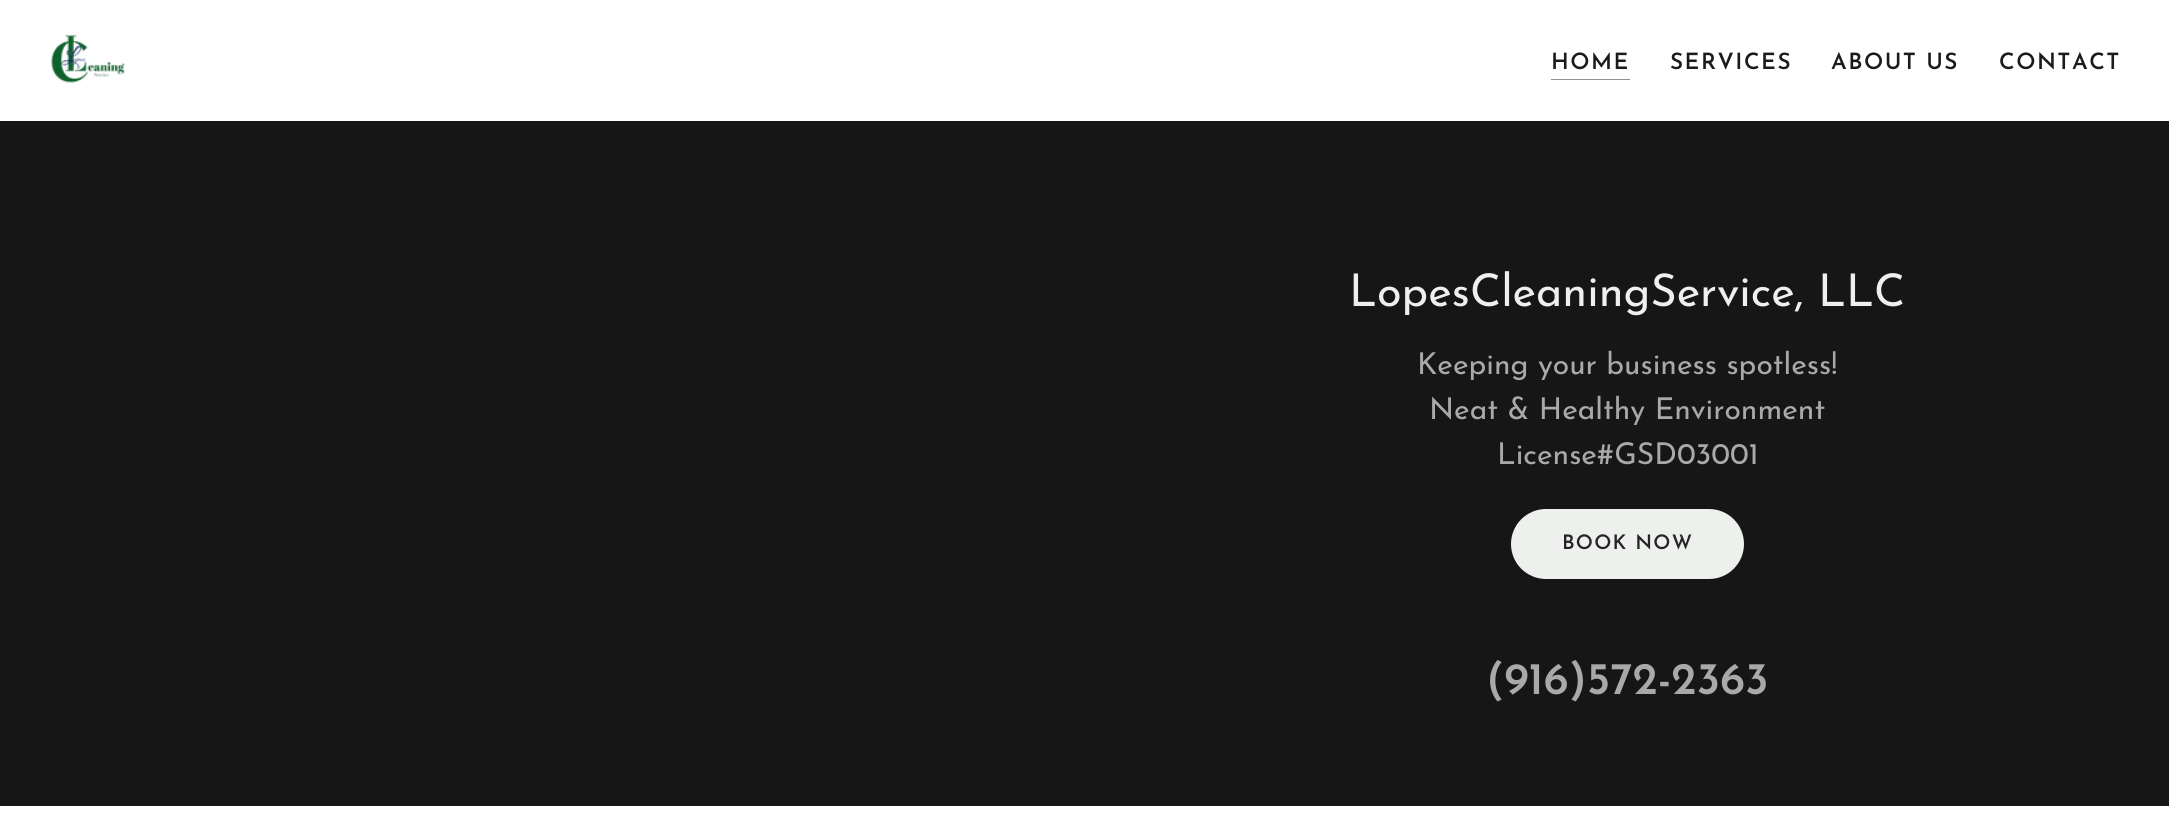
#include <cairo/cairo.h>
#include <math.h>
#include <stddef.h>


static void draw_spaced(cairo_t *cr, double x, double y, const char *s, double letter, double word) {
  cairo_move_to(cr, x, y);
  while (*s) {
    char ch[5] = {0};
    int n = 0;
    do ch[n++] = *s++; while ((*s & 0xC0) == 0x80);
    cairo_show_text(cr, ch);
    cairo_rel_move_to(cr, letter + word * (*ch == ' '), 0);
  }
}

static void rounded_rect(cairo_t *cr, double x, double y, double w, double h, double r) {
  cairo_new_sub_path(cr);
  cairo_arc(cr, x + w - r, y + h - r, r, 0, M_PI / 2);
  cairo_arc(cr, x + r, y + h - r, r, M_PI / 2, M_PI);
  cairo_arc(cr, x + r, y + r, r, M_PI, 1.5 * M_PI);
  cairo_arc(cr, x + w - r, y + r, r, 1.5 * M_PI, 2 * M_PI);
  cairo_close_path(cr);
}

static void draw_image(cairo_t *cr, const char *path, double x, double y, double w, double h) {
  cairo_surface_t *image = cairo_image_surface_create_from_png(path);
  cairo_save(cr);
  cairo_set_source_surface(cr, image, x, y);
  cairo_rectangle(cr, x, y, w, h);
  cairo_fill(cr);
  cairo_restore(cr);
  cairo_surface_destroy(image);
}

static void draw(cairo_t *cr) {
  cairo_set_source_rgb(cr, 22 / 255.0, 22 / 255.0, 22 / 255.0);
  cairo_paint(cr);
  cairo_set_source_rgb(cr, 1, 1, 1);
  cairo_rectangle(cr, 0, 0, 2169, 121);
  cairo_fill(cr);
  draw_image(cr, "images/1.png", 51, 34, 75, 49);
  cairo_set_source_rgb(cr, 142 / 255.0, 146 / 255.0, 142 / 255.0);
  cairo_rectangle(cr, 1551, 79, 79, 1);
  cairo_fill(cr);
  cairo_set_source_rgb(cr, 238 / 255.0, 240 / 255.0, 238 / 255.0);
  rounded_rect(cr, 1511, 509, 233, 70, 35);
  cairo_fill(cr);
  cairo_set_source_rgb(cr, 1, 1, 1);
  cairo_rectangle(cr, 0, 806, 2169, 11);
  cairo_fill(cr);
  cairo_select_font_face(cr, "Josefin Sans SemiBold", CAIRO_FONT_SLANT_NORMAL, CAIRO_FONT_WEIGHT_NORMAL);
  cairo_set_font_size(cr, 22.5);
  cairo_set_source_rgb(cr, 27 / 255.0, 27 / 255.0, 27 / 255.0);
  draw_spaced(cr, 1551, 69, "HOME", 1.5, 0);
  draw_spaced(cr, 1670, 69, "SERVICES", 1.5, 0);
  draw_spaced(cr, 1831, 69, "ABOUT US", 1.5, 0);
  draw_spaced(cr, 1999, 69, "CONTACT", 1.5, 0);
  cairo_select_font_face(cr, "Josefin Sans", CAIRO_FONT_SLANT_NORMAL, CAIRO_FONT_WEIGHT_NORMAL);
  cairo_set_font_size(cr, 45);
  cairo_set_source_rgb(cr, 238 / 255.0, 240 / 255.0, 238 / 255.0);
  cairo_move_to(cr, 1349, 306);
  cairo_show_text(cr, "LopesCleaningService, LLC");
  cairo_set_font_size(cr, 30);
  cairo_set_source_rgb(cr, 169 / 255.0, 169 / 255.0, 169 / 255.0);
  cairo_move_to(cr, 1417, 374);
  cairo_show_text(cr, "Keeping your business spotless!");
  cairo_move_to(cr, 1429, 419);
  cairo_show_text(cr, "Neat & Healthy Environment");
  cairo_move_to(cr, 1497, 464);
  cairo_show_text(cr, "License#GSD03001");
  cairo_select_font_face(cr, "Josefin Sans SemiBold", CAIRO_FONT_SLANT_NORMAL, CAIRO_FONT_WEIGHT_NORMAL);
  cairo_set_font_size(cr, 20);
  cairo_set_source_rgb(cr, 37 / 255.0, 37 / 255.0, 37 / 255.0);
  draw_spaced(cr, 1562, 549, "BOOK NOW", 1.25, 0);
  cairo_set_font_size(cr, 45);
  cairo_set_source_rgb(cr, 169 / 255.0, 169 / 255.0, 169 / 255.0);
  cairo_move_to(cr, 1486, 694);
  cairo_show_text(cr, "(916)572-2363");
}

int main(void) {
  cairo_surface_t *surface = cairo_image_surface_create(CAIRO_FORMAT_RGB24, 2169, 817);
  cairo_t *cr = cairo_create(surface);
  cairo_font_options_t *options = cairo_font_options_create();
  cairo_font_options_set_hint_metrics(options, CAIRO_HINT_METRICS_OFF);
  cairo_font_options_set_hint_style(options, CAIRO_HINT_STYLE_NONE);
  cairo_set_font_options(cr, options);
  cairo_set_miter_limit(cr, 4);
  draw(cr);
  cairo_surface_write_to_png(surface, "out.png");
  cairo_font_options_destroy(options);
  cairo_destroy(cr);
  cairo_surface_destroy(surface);
  return 0;
}
